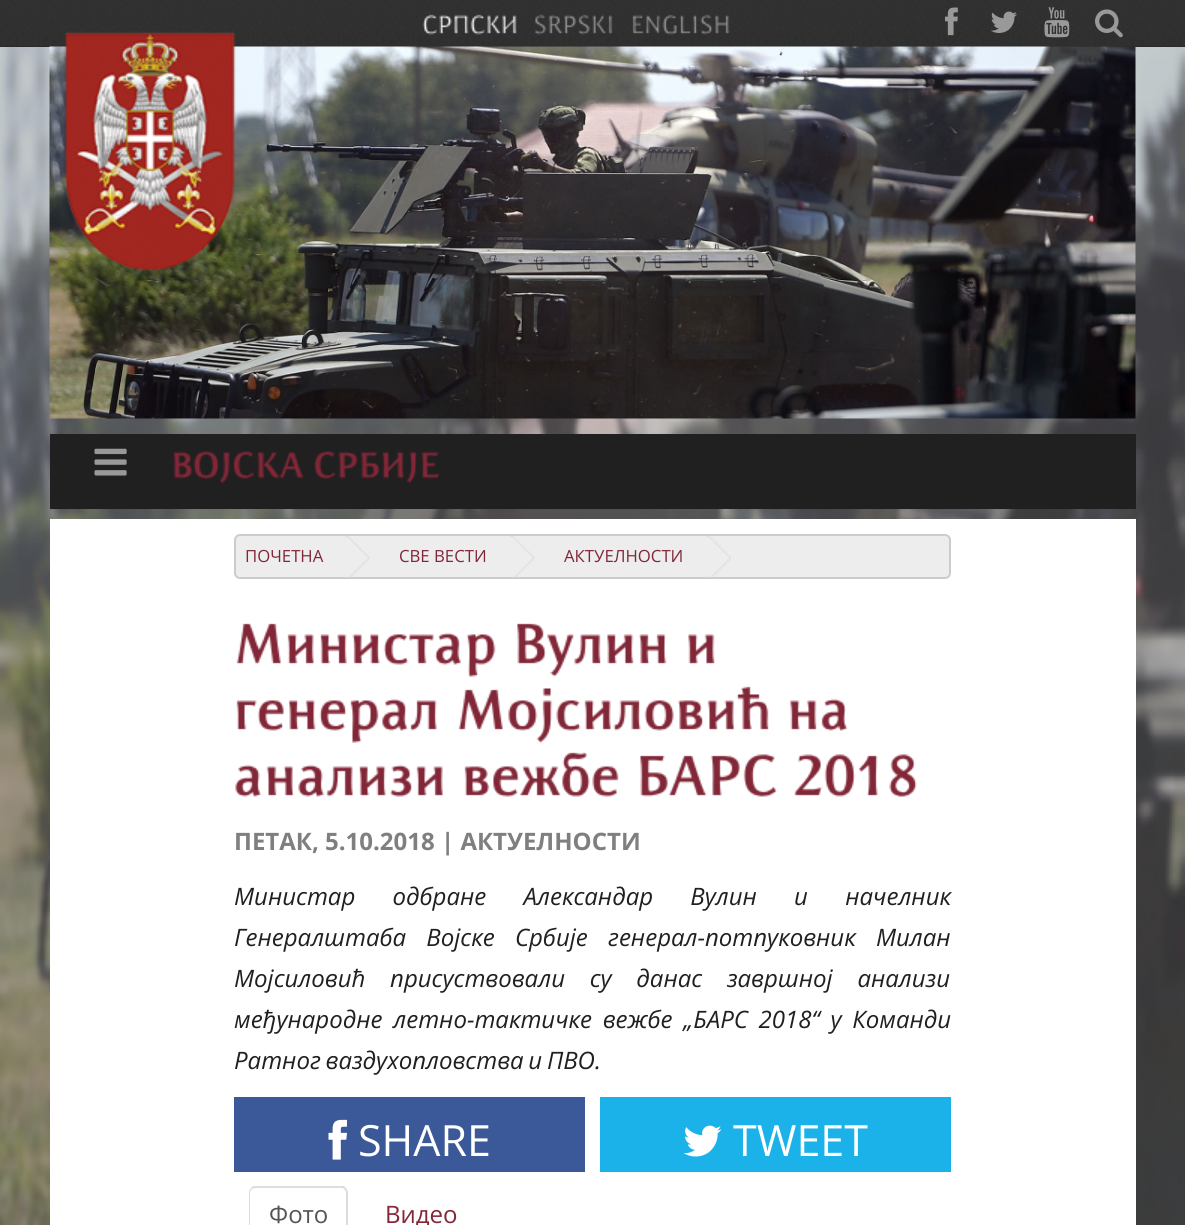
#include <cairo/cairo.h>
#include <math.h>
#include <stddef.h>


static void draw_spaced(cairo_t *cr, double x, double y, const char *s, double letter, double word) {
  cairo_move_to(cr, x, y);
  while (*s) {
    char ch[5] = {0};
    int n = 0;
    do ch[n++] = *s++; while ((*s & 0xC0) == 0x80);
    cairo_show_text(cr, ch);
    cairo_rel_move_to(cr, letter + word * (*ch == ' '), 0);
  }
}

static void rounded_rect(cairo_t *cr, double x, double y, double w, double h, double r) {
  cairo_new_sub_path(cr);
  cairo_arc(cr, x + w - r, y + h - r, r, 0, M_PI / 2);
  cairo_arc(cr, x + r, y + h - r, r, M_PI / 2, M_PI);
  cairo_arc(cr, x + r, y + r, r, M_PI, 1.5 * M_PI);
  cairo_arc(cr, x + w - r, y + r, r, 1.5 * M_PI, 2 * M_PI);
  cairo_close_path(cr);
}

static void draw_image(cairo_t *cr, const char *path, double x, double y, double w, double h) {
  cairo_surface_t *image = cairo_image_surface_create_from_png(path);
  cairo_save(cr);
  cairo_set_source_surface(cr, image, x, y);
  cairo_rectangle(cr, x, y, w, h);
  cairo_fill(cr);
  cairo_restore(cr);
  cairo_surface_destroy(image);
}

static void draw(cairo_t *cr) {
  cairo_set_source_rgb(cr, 1, 1, 1);
  cairo_paint(cr);
  cairo_set_source_rgb(cr, 37 / 255.0, 37 / 255.0, 37 / 255.0);
  cairo_rectangle(cr, 0, 46, 1185, 1);
  cairo_fill(cr);
  draw_image(cr, "images/1.png", 0, 0, 1185, 47);
  draw_image(cr, "images/2.png", 422, 14, 95, 21);
  draw_image(cr, "images/3.png", 535, 14, 78, 21);
  draw_image(cr, "images/4.png", 632, 14, 98, 21);
  draw_image(cr, "images/5.png", 945, 7, 13, 29);
  draw_image(cr, "images/6.png", 991, 11, 26, 22);
  draw_image(cr, "images/7.png", 1044, 7, 26, 31);
  draw_image(cr, "images/8.png", 1095, 9, 28, 29);
  draw_image(cr, "images/11.png", 0, 47, 1185, 1178);
  draw_image(cr, "images/10.png", 49, 46, 1087, 373);
  draw_image(cr, "images/9.png", 64, 31, 172, 241);
  cairo_set_source_rgb(cr, 32 / 255.0, 32 / 255.0, 32 / 255.0);
  cairo_rectangle(cr, 50, 434, 1086, 75);
  cairo_fill(cr);
  draw_image(cr, "images/12.png", 94, 448, 33, 28);
  draw_image(cr, "images/13.png", 173, 451, 131, 33);
  draw_image(cr, "images/14.png", 314, 451, 126, 33);
  cairo_set_source_rgb(cr, 1, 1, 1);
  cairo_rectangle(cr, 50, 519, 1086, 706);
  cairo_fill(cr);
  cairo_set_source_rgb(cr, 237 / 255.0, 237 / 255.0, 237 / 255.0);
  rounded_rect(cr, 235, 535, 715, 43, 5);
  cairo_fill_preserve(cr);
  cairo_set_source_rgb(cr, 204 / 255.0, 204 / 255.0, 204 / 255.0);
  cairo_stroke(cr);
  draw_image(cr, "images/15.png", 345, 536, 25, 42);
  draw_image(cr, "images/16.png", 510, 536, 25, 42);
  draw_image(cr, "images/17.png", 706, 536, 25, 42);
  draw_image(cr, "images/18.png", 236, 623, 260, 54);
  draw_image(cr, "images/19.png", 517, 623, 150, 54);
  draw_image(cr, "images/20.png", 688, 634, 27, 30);
  draw_image(cr, "images/21.png", 236, 698, 201, 45);
  draw_image(cr, "images/22.png", 458, 686, 311, 57);
  draw_image(cr, "images/23.png", 790, 698, 58, 33);
  draw_image(cr, "images/24.png", 235, 764, 208, 33);
  draw_image(cr, "images/25.png", 464, 752, 155, 45);
  draw_image(cr, "images/26.png", 640, 754, 137, 43);
  draw_image(cr, "images/27.png", 794, 754, 123, 43);
  cairo_set_source_rgb(cr, 59 / 255.0, 89 / 255.0, 152 / 255.0);
  cairo_rectangle(cr, 234, 1097, 351, 75);
  cairo_fill(cr);
  draw_image(cr, "images/28.png", 328, 1119, 19, 41);
  cairo_set_source_rgb(cr, 27 / 255.0, 178 / 255.0, 233 / 255.0);
  cairo_rectangle(cr, 600, 1097, 351, 75);
  cairo_fill(cr);
  draw_image(cr, "images/29.png", 683, 1125, 39, 32);
  cairo_set_source_rgb(cr, 221 / 255.0, 221 / 255.0, 221 / 255.0);
  cairo_new_path(cr);
  cairo_move_to(cr, 255, 1188);
  cairo_line_to(cr, 252, 1189);
  cairo_line_to(cr, 251, 1188);
  cairo_line_to(cr, 253, 1186);
  cairo_line_to(cr, 344, 1186);
  cairo_line_to(cr, 346, 1188);
  cairo_line_to(cr, 345, 1190);
  cairo_curve_to(cr, 344, 1189, 343, 1188, 342, 1188);
  cairo_close_path(cr);
  cairo_fill(cr);
  cairo_new_path(cr);
  cairo_move_to(cr, 348, 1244);
  cairo_line_to(cr, 348, 1192);
  cairo_curve_to(cr, 348, 1191, 347, 1189, 346, 1188);
  cairo_line_to(cr, 345, 1190);
  cairo_line_to(cr, 346, 1192);
  cairo_line_to(cr, 346, 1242);
  cairo_close_path(cr);
  cairo_fill(cr);
  cairo_new_path(cr);
  cairo_move_to(cr, 249, 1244);
  cairo_line_to(cr, 250, 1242);
  cairo_line_to(cr, 250, 1192);
  cairo_line_to(cr, 252, 1189);
  cairo_line_to(cr, 251, 1188);
  cairo_curve_to(cr, 250, 1189, 249, 1191, 249, 1192);
  cairo_close_path(cr);
  cairo_fill(cr);
  cairo_select_font_face(cr, "Open Sans", CAIRO_FONT_SLANT_NORMAL, CAIRO_FONT_WEIGHT_NORMAL);
  cairo_set_font_size(cr, 16.75);
  cairo_set_source_rgb(cr, 129 / 255.0, 39 / 255.0, 56 / 255.0);
  cairo_move_to(cr, 245, 562);
  cairo_show_text(cr, "ПОЧЕТНА");
  cairo_move_to(cr, 399, 562);
  cairo_show_text(cr, "СВЕ ВЕСТИ");
  cairo_move_to(cr, 564, 562);
  cairo_show_text(cr, "АКТУЕЛНОСТИ");
  cairo_select_font_face(cr, "Open Sans", CAIRO_FONT_SLANT_NORMAL, CAIRO_FONT_WEIGHT_BOLD);
  cairo_set_font_size(cr, 24);
  cairo_set_source_rgb(cr, 127 / 255.0, 127 / 255.0, 127 / 255.0);
  cairo_move_to(cr, 234, 850);
  cairo_show_text(cr, "ПЕТАК, 5.10.2018 | АКТУЕЛНОСТИ");
  cairo_select_font_face(cr, "Open Sans", CAIRO_FONT_SLANT_ITALIC, CAIRO_FONT_WEIGHT_NORMAL);
  cairo_set_source_rgb(cr, 32 / 255.0, 32 / 255.0, 32 / 255.0);
  draw_spaced(cr, 234, 905, "Министар одбране Александар Вулин и начелник", 0, 31);
  draw_spaced(cr, 234, 946, "Генералштаба Војске Србије генерал-потпуковник Милан", 0, 14);
  draw_spaced(cr, 234, 987, "Мојсиловић присуствовали су данас завршној анализи", 0, 18.5);
  draw_spaced(cr, 234, 1028, "међународне летно-тактичке вежбе „БАРС 2018“ у Команди", 0, 4.5);
  draw_spaced(cr, 234, 1069, "Ратног ваздухопловства и ПВО.", 0, -1.5);
  cairo_select_font_face(cr, "Open Sans", CAIRO_FONT_SLANT_NORMAL, CAIRO_FONT_WEIGHT_NORMAL);
  cairo_set_font_size(cr, 43);
  cairo_set_source_rgb(cr, 1, 1, 1);
  cairo_move_to(cr, 358, 1156);
  cairo_show_text(cr, "SHARE");
  cairo_move_to(cr, 733, 1156);
  cairo_show_text(cr, "TWEET");
  cairo_set_font_size(cr, 24);
  cairo_set_source_rgb(cr, 85 / 255.0, 85 / 255.0, 85 / 255.0);
  cairo_move_to(cr, 269, 1223);
  cairo_show_text(cr, "Фото");
  cairo_set_source_rgb(cr, 129 / 255.0, 39 / 255.0, 56 / 255.0);
  cairo_move_to(cr, 385, 1223);
  cairo_show_text(cr, "Видео");
}

int main(void) {
  cairo_surface_t *surface = cairo_image_surface_create(CAIRO_FORMAT_RGB24, 1185, 1225);
  cairo_t *cr = cairo_create(surface);
  cairo_font_options_t *options = cairo_font_options_create();
  cairo_font_options_set_hint_metrics(options, CAIRO_HINT_METRICS_OFF);
  cairo_font_options_set_hint_style(options, CAIRO_HINT_STYLE_NONE);
  cairo_set_font_options(cr, options);
  cairo_set_miter_limit(cr, 4);
  draw(cr);
  cairo_surface_write_to_png(surface, "out.png");
  cairo_font_options_destroy(options);
  cairo_destroy(cr);
  cairo_surface_destroy(surface);
  return 0;
}
